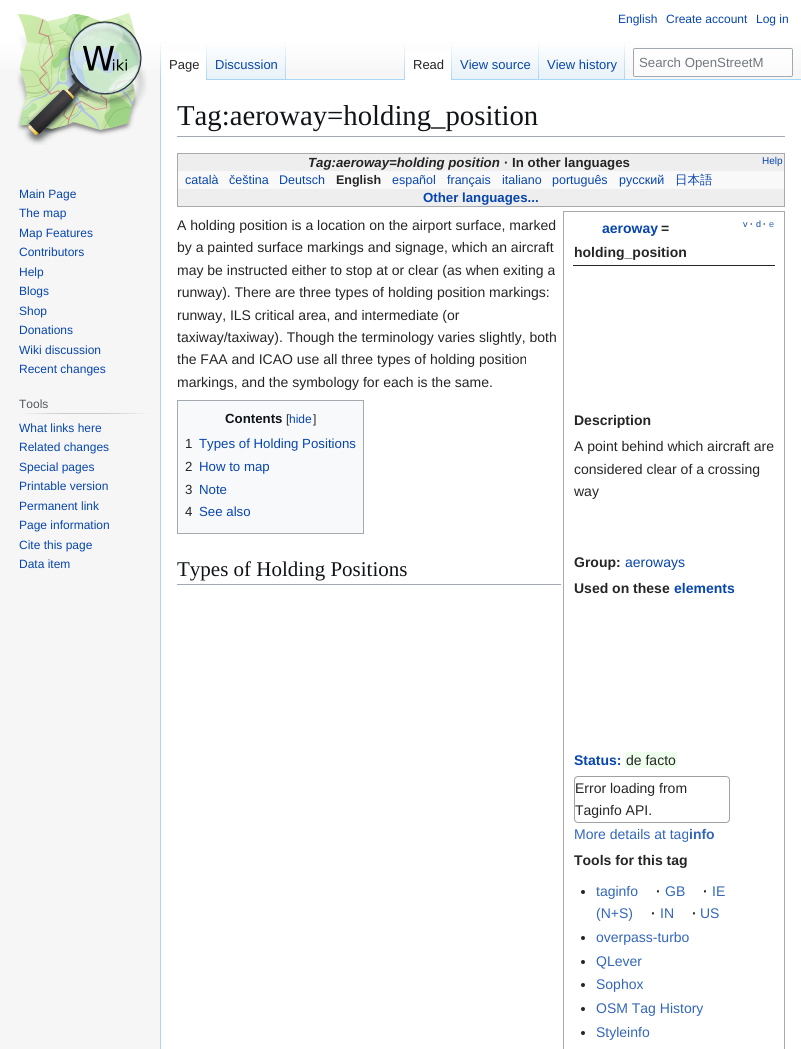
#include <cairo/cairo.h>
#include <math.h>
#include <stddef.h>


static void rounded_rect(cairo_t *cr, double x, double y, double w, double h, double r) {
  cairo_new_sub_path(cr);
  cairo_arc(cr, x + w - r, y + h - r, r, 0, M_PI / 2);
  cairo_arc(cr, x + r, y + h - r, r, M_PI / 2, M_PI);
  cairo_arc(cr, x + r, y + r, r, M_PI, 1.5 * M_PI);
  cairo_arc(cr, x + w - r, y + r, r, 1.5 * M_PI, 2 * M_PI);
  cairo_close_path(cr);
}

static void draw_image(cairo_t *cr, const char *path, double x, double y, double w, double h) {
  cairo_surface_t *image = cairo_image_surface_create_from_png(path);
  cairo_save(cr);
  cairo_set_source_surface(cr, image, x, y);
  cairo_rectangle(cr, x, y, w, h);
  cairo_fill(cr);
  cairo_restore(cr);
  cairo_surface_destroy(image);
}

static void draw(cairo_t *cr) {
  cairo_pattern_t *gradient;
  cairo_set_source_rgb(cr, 246 / 255.0, 246 / 255.0, 246 / 255.0);
  cairo_paint(cr);
  gradient = cairo_pattern_create_linear(401, 0, 401, 80);
  cairo_pattern_add_color_stop_rgba(gradient, 0.5, 1, 1, 1, 1);
  cairo_pattern_add_color_stop_rgba(gradient, 1, 246 / 255.0, 246 / 255.0, 246 / 255.0, 1);
  cairo_set_source(cr, gradient);
  cairo_pattern_destroy(gradient);
  cairo_rectangle(cr, 0, 0, 801, 69);
  cairo_fill(cr);
  cairo_set_source_rgb(cr, 167 / 255.0, 215 / 255.0, 249 / 255.0);
  cairo_rectangle(cr, 160, 79, 1, 970);
  cairo_fill(cr);
  gradient = cairo_pattern_create_linear(161, 40, 161, 80);
  cairo_pattern_add_color_stop_rgba(gradient, 0, 167 / 255.0, 215 / 255.0, 249 / 255.0, 0);
  cairo_pattern_add_color_stop_rgba(gradient, 1, 167 / 255.0, 215 / 255.0, 249 / 255.0, 1);
  cairo_set_source(cr, gradient);
  cairo_pattern_destroy(gradient);
  cairo_rectangle(cr, 160, 40, 1, 40);
  cairo_fill(cr);
  cairo_set_source_rgb(cr, 1, 1, 1);
  cairo_rectangle(cr, 161, 51, 45, 29);
  cairo_fill(cr);
  gradient = cairo_pattern_create_linear(207, 40, 207, 80);
  cairo_pattern_add_color_stop_rgba(gradient, 0, 1, 1, 1, 1);
  cairo_pattern_add_color_stop_rgba(gradient, 1, 167 / 255.0, 215 / 255.0, 249 / 255.0, 1);
  cairo_set_source(cr, gradient);
  cairo_pattern_destroy(gradient);
  cairo_rectangle(cr, 206, 40, 1, 40);
  cairo_fill(cr);
  gradient = cairo_pattern_create_linear(247, 80, 247, 40);
  cairo_pattern_add_color_stop_rgba(gradient, 0, 119 / 255.0, 193 / 255.0, 246 / 255.0, 1);
  cairo_pattern_add_color_stop_rgba(gradient, 0.03, 232 / 255.0, 242 / 255.0, 248 / 255.0, 1);
  cairo_pattern_add_color_stop_rgba(gradient, 1, 1, 1, 1, 1);
  cairo_set_source(cr, gradient);
  cairo_pattern_destroy(gradient);
  cairo_rectangle(cr, 207, 46, 79, 34);
  cairo_fill(cr);
  gradient = cairo_pattern_create_linear(286, 40, 286, 80);
  cairo_pattern_add_color_stop_rgba(gradient, 0, 167 / 255.0, 215 / 255.0, 249 / 255.0, 0);
  cairo_pattern_add_color_stop_rgba(gradient, 1, 167 / 255.0, 215 / 255.0, 249 / 255.0, 1);
  cairo_set_source(cr, gradient);
  cairo_pattern_destroy(gradient);
  cairo_rectangle(cr, 285, 40, 1, 40);
  cairo_fill(cr);
  cairo_set_source_rgb(cr, 167 / 255.0, 215 / 255.0, 249 / 255.0);
  cairo_rectangle(cr, 286, 79, 515, 1);
  cairo_fill(cr);
  gradient = cairo_pattern_create_linear(405, 40, 405, 80);
  cairo_pattern_add_color_stop_rgba(gradient, 0, 167 / 255.0, 215 / 255.0, 249 / 255.0, 0);
  cairo_pattern_add_color_stop_rgba(gradient, 1, 167 / 255.0, 215 / 255.0, 249 / 255.0, 1);
  cairo_set_source(cr, gradient);
  cairo_pattern_destroy(gradient);
  cairo_rectangle(cr, 404, 40, 1, 40);
  cairo_fill(cr);
  cairo_set_source_rgb(cr, 1, 1, 1);
  cairo_rectangle(cr, 405, 51, 46, 29);
  cairo_fill(cr);
  gradient = cairo_pattern_create_linear(452, 40, 452, 80);
  cairo_pattern_add_color_stop_rgba(gradient, 0, 1, 1, 1, 1);
  cairo_pattern_add_color_stop_rgba(gradient, 1, 167 / 255.0, 215 / 255.0, 249 / 255.0, 1);
  cairo_set_source(cr, gradient);
  cairo_pattern_destroy(gradient);
  cairo_rectangle(cr, 451, 40, 1, 40);
  cairo_fill(cr);
  gradient = cairo_pattern_create_linear(496, 80, 496, 40);
  cairo_pattern_add_color_stop_rgba(gradient, 0, 119 / 255.0, 193 / 255.0, 246 / 255.0, 1);
  cairo_pattern_add_color_stop_rgba(gradient, 0.03, 232 / 255.0, 242 / 255.0, 248 / 255.0, 1);
  cairo_pattern_add_color_stop_rgba(gradient, 1, 1, 1, 1, 1);
  cairo_set_source(cr, gradient);
  cairo_pattern_destroy(gradient);
  cairo_rectangle(cr, 452, 46, 87, 33);
  cairo_fill(cr);
  gradient = cairo_pattern_create_linear(539, 40, 539, 80);
  cairo_pattern_add_color_stop_rgba(gradient, 0, 167 / 255.0, 215 / 255.0, 249 / 255.0, 0);
  cairo_pattern_add_color_stop_rgba(gradient, 1, 167 / 255.0, 215 / 255.0, 249 / 255.0, 1);
  cairo_set_source(cr, gradient);
  cairo_pattern_destroy(gradient);
  cairo_rectangle(cr, 538, 40, 1, 40);
  cairo_fill(cr);
  gradient = cairo_pattern_create_linear(582, 80, 582, 40);
  cairo_pattern_add_color_stop_rgba(gradient, 0, 119 / 255.0, 193 / 255.0, 246 / 255.0, 1);
  cairo_pattern_add_color_stop_rgba(gradient, 0.03, 232 / 255.0, 242 / 255.0, 248 / 255.0, 1);
  cairo_pattern_add_color_stop_rgba(gradient, 1, 1, 1, 1, 1);
  cairo_set_source(cr, gradient);
  cairo_pattern_destroy(gradient);
  cairo_rectangle(cr, 539, 46, 86, 33);
  cairo_fill(cr);
  gradient = cairo_pattern_create_linear(625, 40, 625, 80);
  cairo_pattern_add_color_stop_rgba(gradient, 0, 167 / 255.0, 215 / 255.0, 249 / 255.0, 0);
  cairo_pattern_add_color_stop_rgba(gradient, 1, 167 / 255.0, 215 / 255.0, 249 / 255.0, 1);
  cairo_set_source(cr, gradient);
  cairo_pattern_destroy(gradient);
  cairo_rectangle(cr, 624, 40, 1, 40);
  cairo_fill(cr);
  cairo_set_source_rgba(cr, 1, 1, 1, 0.5);
  rounded_rect(cr, 633.5, 48.5, 159, 28, 1.5);
  cairo_fill_preserve(cr);
  cairo_set_source_rgb(cr, 162 / 255.0, 169 / 255.0, 177 / 255.0);
  cairo_set_line_width(cr, 1);
  cairo_stroke(cr);
  draw_image(cr, "images/1.png", 17, 13, 130, 132);
  gradient = cairo_pattern_create_linear(19, 414, 150, 414);
  cairo_pattern_add_color_stop_rgba(gradient, 0, 246 / 255.0, 246 / 255.0, 246 / 255.0, 1);
  cairo_pattern_add_color_stop_rgba(gradient, 0.33, 200 / 255.0, 204 / 255.0, 209 / 255.0, 1);
  cairo_pattern_add_color_stop_rgba(gradient, 0.66, 200 / 255.0, 204 / 255.0, 209 / 255.0, 1);
  cairo_pattern_add_color_stop_rgba(gradient, 1, 246 / 255.0, 246 / 255.0, 246 / 255.0, 1);
  cairo_set_source(cr, gradient);
  cairo_pattern_destroy(gradient);
  cairo_rectangle(cr, 19, 413, 131, 1);
  cairo_fill(cr);
  cairo_set_source_rgb(cr, 1, 1, 1);
  cairo_rectangle(cr, 161, 80, 640, 969);
  cairo_fill(cr);
  cairo_set_source_rgb(cr, 162 / 255.0, 169 / 255.0, 177 / 255.0);
  cairo_rectangle(cr, 177, 136, 608, 1);
  cairo_fill(cr);
  cairo_rectangle(cr, 177.5, 153.5, 607, 53);
  cairo_set_source_rgb(cr, 170 / 255.0, 170 / 255.0, 170 / 255.0);
  cairo_stroke(cr);
  cairo_set_source_rgb(cr, 238 / 255.0, 238 / 255.0, 238 / 255.0);
  cairo_rectangle(cr, 178, 154, 606, 17);
  cairo_fill(cr);
  cairo_set_source_rgb(cr, 249 / 255.0, 249 / 255.0, 249 / 255.0);
  cairo_rectangle(cr, 178, 171, 606, 18);
  cairo_fill(cr);
  cairo_set_source_rgb(cr, 238 / 255.0, 238 / 255.0, 238 / 255.0);
  cairo_rectangle(cr, 178, 189, 606, 17);
  cairo_fill(cr);
  cairo_rectangle(cr, 563.5, 211.5, 221, 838);
  cairo_set_source_rgb(cr, 170 / 255.0, 170 / 255.0, 170 / 255.0);
  cairo_stroke(cr);
  cairo_set_source_rgb(cr, 37 / 255.0, 37 / 255.0, 37 / 255.0);
  cairo_rectangle(cr, 573, 265, 202, 1);
  cairo_fill(cr);
  cairo_set_source_rgb(cr, 238 / 255.0, 1, 238 / 255.0);
  cairo_rectangle(cr, 625, 752, 52, 16);
  cairo_fill(cr);
  rounded_rect(cr, 574.5, 776.5, 155, 46, 3.5);
  cairo_set_source_rgb(cr, 160 / 255.0, 160 / 255.0, 160 / 255.0);
  cairo_stroke(cr);
  cairo_set_source_rgb(cr, 37 / 255.0, 37 / 255.0, 37 / 255.0);
  cairo_arc(cr, 583, 892, 2, 0, 2 * M_PI);
  cairo_fill(cr);
  cairo_arc(cr, 583, 938, 2, 0, 2 * M_PI);
  cairo_fill(cr);
  cairo_arc(cr, 583, 962, 2, 0, 2 * M_PI);
  cairo_fill(cr);
  cairo_arc(cr, 583, 985, 2, 0, 2 * M_PI);
  cairo_fill(cr);
  cairo_arc(cr, 583, 1009, 2, 0, 2 * M_PI);
  cairo_fill(cr);
  cairo_arc(cr, 583, 1033, 2, 0, 2 * M_PI);
  cairo_fill(cr);
  cairo_set_source_rgb(cr, 248 / 255.0, 249 / 255.0, 250 / 255.0);
  cairo_rectangle(cr, 177.5, 400.5, 186, 133);
  cairo_fill_preserve(cr);
  cairo_set_source_rgb(cr, 162 / 255.0, 169 / 255.0, 177 / 255.0);
  cairo_stroke(cr);
  cairo_rectangle(cr, 177, 584, 384, 1);
  cairo_fill(cr);
  cairo_select_font_face(cr, "Liberation Sans", CAIRO_FONT_SLANT_NORMAL, CAIRO_FONT_WEIGHT_NORMAL);
  cairo_set_font_size(cr, 12);
  cairo_set_source_rgb(cr, 6 / 255.0, 69 / 255.0, 173 / 255.0);
  cairo_move_to(cr, 618, 23);
  cairo_show_text(cr, "English");
  cairo_move_to(cr, 666, 23);
  cairo_show_text(cr, "Create account");
  cairo_move_to(cr, 756, 23);
  cairo_show_text(cr, "Log in");
  cairo_set_font_size(cr, 13);
  cairo_set_source_rgb(cr, 37 / 255.0, 37 / 255.0, 37 / 255.0);
  cairo_move_to(cr, 169, 69);
  cairo_show_text(cr, "Page");
  cairo_set_source_rgb(cr, 6 / 255.0, 69 / 255.0, 173 / 255.0);
  cairo_move_to(cr, 215, 69);
  cairo_show_text(cr, "Discussion");
  cairo_set_source_rgb(cr, 37 / 255.0, 37 / 255.0, 37 / 255.0);
  cairo_move_to(cr, 413, 69);
  cairo_show_text(cr, "Read");
  cairo_set_source_rgb(cr, 6 / 255.0, 69 / 255.0, 173 / 255.0);
  cairo_move_to(cr, 460, 69);
  cairo_show_text(cr, "View source");
  cairo_move_to(cr, 547, 69);
  cairo_show_text(cr, "View history");
  cairo_save(cr);
  cairo_rectangle(cr, 639, 55, 124, 15);
  cairo_clip(cr);
  cairo_set_font_size(cr, 13.25);
  cairo_set_source_rgb(cr, 114 / 255.0, 119 / 255.0, 125 / 255.0);
  cairo_move_to(cr, 639, 67);
  cairo_show_text(cr, "Search OpenStreetM");
  cairo_restore(cr);
  cairo_set_font_size(cr, 12);
  cairo_move_to(cr, 19, 198);
  cairo_show_text(cr, "Main Page");
  cairo_move_to(cr, 19, 217);
  cairo_show_text(cr, "The map");
  cairo_move_to(cr, 19, 237);
  cairo_show_text(cr, "Map Features");
  cairo_move_to(cr, 19, 256);
  cairo_show_text(cr, "Contributors");
  cairo_move_to(cr, 19, 276);
  cairo_show_text(cr, "Help");
  cairo_move_to(cr, 19, 295);
  cairo_show_text(cr, "Blogs");
  cairo_move_to(cr, 19, 315);
  cairo_show_text(cr, "Shop");
  cairo_move_to(cr, 19, 334);
  cairo_show_text(cr, "Donations");
  cairo_move_to(cr, 19, 354);
  cairo_show_text(cr, "Wiki discussion");
  cairo_move_to(cr, 19, 373);
  cairo_show_text(cr, "Recent changes");
  cairo_set_source_rgb(cr, 84 / 255.0, 89 / 255.0, 93 / 255.0);
  cairo_move_to(cr, 19, 408);
  cairo_show_text(cr, "Tools");
  cairo_set_source_rgb(cr, 6 / 255.0, 69 / 255.0, 173 / 255.0);
  cairo_move_to(cr, 19, 432);
  cairo_show_text(cr, "What links here");
  cairo_move_to(cr, 19, 451);
  cairo_show_text(cr, "Related changes");
  cairo_move_to(cr, 19, 471);
  cairo_show_text(cr, "Special pages");
  cairo_move_to(cr, 19, 490);
  cairo_show_text(cr, "Printable version");
  cairo_move_to(cr, 19, 510);
  cairo_show_text(cr, "Permanent link");
  cairo_move_to(cr, 19, 529);
  cairo_show_text(cr, "Page information");
  cairo_move_to(cr, 19, 549);
  cairo_show_text(cr, "Cite this page");
  cairo_move_to(cr, 19, 568);
  cairo_show_text(cr, "Data item");
  cairo_select_font_face(cr, "Liberation Serif", CAIRO_FONT_SLANT_NORMAL, CAIRO_FONT_WEIGHT_NORMAL);
  cairo_set_font_size(cr, 28.75);
  cairo_set_source_rgb(cr, 16 / 255.0, 20 / 255.0, 24 / 255.0);
  cairo_move_to(cr, 177, 125);
  cairo_show_text(cr, "Tag:aeroway=holding_position");
  cairo_select_font_face(cr, "Liberation Sans", CAIRO_FONT_SLANT_ITALIC, CAIRO_FONT_WEIGHT_BOLD);
  cairo_set_font_size(cr, 13.25);
  cairo_set_source_rgb(cr, 37 / 255.0, 37 / 255.0, 37 / 255.0);
  cairo_move_to(cr, 308, 167);
  cairo_show_text(cr, "Tag:aeroway=holding position");
  cairo_select_font_face(cr, "Liberation Sans", CAIRO_FONT_SLANT_NORMAL, CAIRO_FONT_WEIGHT_BOLD);
  cairo_move_to(cr, 504, 167);
  cairo_show_text(cr, "· In other languages");
  cairo_select_font_face(cr, "Liberation Sans", CAIRO_FONT_SLANT_NORMAL, CAIRO_FONT_WEIGHT_NORMAL);
  cairo_set_font_size(cr, 10);
  cairo_set_source_rgb(cr, 6 / 255.0, 69 / 255.0, 173 / 255.0);
  cairo_move_to(cr, 762, 164);
  cairo_show_text(cr, "Help");
  cairo_set_font_size(cr, 12.5);
  cairo_move_to(cr, 185, 184);
  cairo_show_text(cr, "català");
  cairo_move_to(cr, 229, 184);
  cairo_show_text(cr, "čeština");
  cairo_move_to(cr, 279, 184);
  cairo_show_text(cr, "Deutsch");
  cairo_select_font_face(cr, "Liberation Sans", CAIRO_FONT_SLANT_NORMAL, CAIRO_FONT_WEIGHT_BOLD);
  cairo_set_source_rgb(cr, 37 / 255.0, 37 / 255.0, 37 / 255.0);
  cairo_move_to(cr, 336, 184);
  cairo_show_text(cr, "English");
  cairo_select_font_face(cr, "Liberation Sans", CAIRO_FONT_SLANT_NORMAL, CAIRO_FONT_WEIGHT_NORMAL);
  cairo_set_source_rgb(cr, 6 / 255.0, 69 / 255.0, 173 / 255.0);
  cairo_move_to(cr, 392, 184);
  cairo_show_text(cr, "español");
  cairo_move_to(cr, 447, 184);
  cairo_show_text(cr, "français");
  cairo_move_to(cr, 502, 184);
  cairo_show_text(cr, "italiano");
  cairo_move_to(cr, 552, 184);
  cairo_show_text(cr, "português");
  cairo_move_to(cr, 619, 184);
  cairo_show_text(cr, "русский");
  cairo_select_font_face(cr, "WenQuanYi Zen Hei Medium", CAIRO_FONT_SLANT_NORMAL, CAIRO_FONT_WEIGHT_NORMAL);
  cairo_move_to(cr, 675, 184);
  cairo_show_text(cr, "日本語");
  cairo_select_font_face(cr, "Liberation Sans", CAIRO_FONT_SLANT_NORMAL, CAIRO_FONT_WEIGHT_BOLD);
  cairo_set_font_size(cr, 13.25);
  cairo_move_to(cr, 423, 202);
  cairo_show_text(cr, "Other languages...");
  cairo_select_font_face(cr, "Liberation Sans", CAIRO_FONT_SLANT_NORMAL, CAIRO_FONT_WEIGHT_NORMAL);
  cairo_set_font_size(cr, 14);
  cairo_set_source_rgb(cr, 37 / 255.0, 37 / 255.0, 37 / 255.0);
  cairo_move_to(cr, 177, 230);
  cairo_show_text(cr, "A holding position is a location on the airport surface, marked");
  cairo_move_to(cr, 177, 252);
  cairo_show_text(cr, "by a painted surface markings and signage, which an aircraft");
  cairo_move_to(cr, 177, 275);
  cairo_show_text(cr, "may be instructed either to stop at or clear (as when exiting a");
  cairo_move_to(cr, 177, 297);
  cairo_show_text(cr, "runway). There are three types of holding position markings:");
  cairo_move_to(cr, 177, 320);
  cairo_show_text(cr, "runway, ILS critical area, and intermediate (or");
  cairo_move_to(cr, 177, 342);
  cairo_show_text(cr, "taxiway/taxiway). Though the terminology varies slightly, both");
  cairo_move_to(cr, 177, 364);
  cairo_show_text(cr, "the FAA and ICAO use all three types of holding position");
  cairo_move_to(cr, 177, 387);
  cairo_show_text(cr, "markings, and the symbology for each is the same.");
  cairo_set_font_size(cr, 9);
  cairo_set_source_rgb(cr, 6 / 255.0, 69 / 255.0, 173 / 255.0);
  cairo_move_to(cr, 743, 227);
  cairo_show_text(cr, "v");
  cairo_select_font_face(cr, "Liberation Sans", CAIRO_FONT_SLANT_NORMAL, CAIRO_FONT_WEIGHT_BOLD);
  cairo_set_source_rgb(cr, 37 / 255.0, 37 / 255.0, 37 / 255.0);
  cairo_move_to(cr, 750, 227);
  cairo_show_text(cr, "·");
  cairo_select_font_face(cr, "Liberation Sans", CAIRO_FONT_SLANT_NORMAL, CAIRO_FONT_WEIGHT_NORMAL);
  cairo_set_source_rgb(cr, 6 / 255.0, 69 / 255.0, 173 / 255.0);
  cairo_move_to(cr, 756, 227);
  cairo_show_text(cr, "d");
  cairo_select_font_face(cr, "Liberation Sans", CAIRO_FONT_SLANT_NORMAL, CAIRO_FONT_WEIGHT_BOLD);
  cairo_set_source_rgb(cr, 37 / 255.0, 37 / 255.0, 37 / 255.0);
  cairo_move_to(cr, 763, 227);
  cairo_show_text(cr, "·");
  cairo_select_font_face(cr, "Liberation Sans", CAIRO_FONT_SLANT_NORMAL, CAIRO_FONT_WEIGHT_NORMAL);
  cairo_set_source_rgb(cr, 51 / 255.0, 102 / 255.0, 187 / 255.0);
  cairo_move_to(cr, 769, 227);
  cairo_show_text(cr, "e");
  cairo_select_font_face(cr, "Liberation Sans", CAIRO_FONT_SLANT_NORMAL, CAIRO_FONT_WEIGHT_BOLD);
  cairo_set_font_size(cr, 14);
  cairo_set_source_rgb(cr, 6 / 255.0, 69 / 255.0, 173 / 255.0);
  cairo_move_to(cr, 602, 233);
  cairo_show_text(cr, "aeroway");
  cairo_set_source_rgb(cr, 37 / 255.0, 37 / 255.0, 37 / 255.0);
  cairo_move_to(cr, 661, 233);
  cairo_show_text(cr, "=");
  cairo_move_to(cr, 574, 257);
  cairo_show_text(cr, "holding_position");
  cairo_move_to(cr, 574, 425);
  cairo_show_text(cr, "Description");
  cairo_select_font_face(cr, "Liberation Sans", CAIRO_FONT_SLANT_NORMAL, CAIRO_FONT_WEIGHT_NORMAL);
  cairo_move_to(cr, 574, 451);
  cairo_show_text(cr, "A point behind which aircraft are");
  cairo_move_to(cr, 574, 474);
  cairo_show_text(cr, "considered clear of a crossing");
  cairo_move_to(cr, 574, 496);
  cairo_show_text(cr, "way");
  cairo_select_font_face(cr, "Liberation Sans", CAIRO_FONT_SLANT_NORMAL, CAIRO_FONT_WEIGHT_BOLD);
  cairo_move_to(cr, 574, 567);
  cairo_show_text(cr, "Group:");
  cairo_select_font_face(cr, "Liberation Sans", CAIRO_FONT_SLANT_NORMAL, CAIRO_FONT_WEIGHT_NORMAL);
  cairo_set_source_rgb(cr, 6 / 255.0, 69 / 255.0, 173 / 255.0);
  cairo_move_to(cr, 625, 567);
  cairo_show_text(cr, "aeroways");
  cairo_select_font_face(cr, "Liberation Sans", CAIRO_FONT_SLANT_NORMAL, CAIRO_FONT_WEIGHT_BOLD);
  cairo_set_source_rgb(cr, 37 / 255.0, 37 / 255.0, 37 / 255.0);
  cairo_move_to(cr, 574, 593);
  cairo_show_text(cr, "Used on these");
  cairo_set_source_rgb(cr, 6 / 255.0, 69 / 255.0, 173 / 255.0);
  cairo_move_to(cr, 674, 593);
  cairo_show_text(cr, "elements");
  cairo_move_to(cr, 574, 765);
  cairo_show_text(cr, "Status:");
  cairo_select_font_face(cr, "Liberation Sans", CAIRO_FONT_SLANT_NORMAL, CAIRO_FONT_WEIGHT_NORMAL);
  cairo_set_source_rgb(cr, 37 / 255.0, 37 / 255.0, 37 / 255.0);
  cairo_move_to(cr, 626, 765);
  cairo_show_text(cr, "de facto");
  cairo_move_to(cr, 575, 793);
  cairo_show_text(cr, "Error loading from");
  cairo_move_to(cr, 575, 815);
  cairo_show_text(cr, "Taginfo API.");
  cairo_set_source_rgb(cr, 51 / 255.0, 102 / 255.0, 187 / 255.0);
  cairo_move_to(cr, 574, 839);
  cairo_show_text(cr, "More details at tag");
  cairo_select_font_face(cr, "Liberation Sans", CAIRO_FONT_SLANT_NORMAL, CAIRO_FONT_WEIGHT_BOLD);
  cairo_move_to(cr, 689, 839);
  cairo_show_text(cr, "info");
  cairo_set_source_rgb(cr, 37 / 255.0, 37 / 255.0, 37 / 255.0);
  cairo_move_to(cr, 574, 865);
  cairo_show_text(cr, "Tools for this tag");
  cairo_select_font_face(cr, "Liberation Sans", CAIRO_FONT_SLANT_NORMAL, CAIRO_FONT_WEIGHT_NORMAL);
  cairo_set_source_rgb(cr, 51 / 255.0, 102 / 255.0, 187 / 255.0);
  cairo_move_to(cr, 596, 896);
  cairo_show_text(cr, "taginfo");
  cairo_select_font_face(cr, "Liberation Sans", CAIRO_FONT_SLANT_NORMAL, CAIRO_FONT_WEIGHT_BOLD);
  cairo_set_source_rgb(cr, 37 / 255.0, 37 / 255.0, 37 / 255.0);
  cairo_move_to(cr, 656, 896);
  cairo_show_text(cr, "·");
  cairo_select_font_face(cr, "Liberation Sans", CAIRO_FONT_SLANT_NORMAL, CAIRO_FONT_WEIGHT_NORMAL);
  cairo_set_source_rgb(cr, 51 / 255.0, 102 / 255.0, 187 / 255.0);
  cairo_move_to(cr, 665, 896);
  cairo_show_text(cr, "GB");
  cairo_select_font_face(cr, "Liberation Sans", CAIRO_FONT_SLANT_NORMAL, CAIRO_FONT_WEIGHT_BOLD);
  cairo_set_source_rgb(cr, 37 / 255.0, 37 / 255.0, 37 / 255.0);
  cairo_move_to(cr, 703, 896);
  cairo_show_text(cr, "·");
  cairo_select_font_face(cr, "Liberation Sans", CAIRO_FONT_SLANT_NORMAL, CAIRO_FONT_WEIGHT_NORMAL);
  cairo_set_source_rgb(cr, 51 / 255.0, 102 / 255.0, 187 / 255.0);
  cairo_move_to(cr, 712, 896);
  cairo_show_text(cr, "IE");
  cairo_move_to(cr, 596, 918);
  cairo_show_text(cr, "(N+S)");
  cairo_select_font_face(cr, "Liberation Sans", CAIRO_FONT_SLANT_NORMAL, CAIRO_FONT_WEIGHT_BOLD);
  cairo_set_source_rgb(cr, 37 / 255.0, 37 / 255.0, 37 / 255.0);
  cairo_move_to(cr, 651, 918);
  cairo_show_text(cr, "·");
  cairo_select_font_face(cr, "Liberation Sans", CAIRO_FONT_SLANT_NORMAL, CAIRO_FONT_WEIGHT_NORMAL);
  cairo_set_source_rgb(cr, 51 / 255.0, 102 / 255.0, 187 / 255.0);
  cairo_move_to(cr, 660, 918);
  cairo_show_text(cr, "IN");
  cairo_select_font_face(cr, "Liberation Sans", CAIRO_FONT_SLANT_NORMAL, CAIRO_FONT_WEIGHT_BOLD);
  cairo_set_source_rgb(cr, 37 / 255.0, 37 / 255.0, 37 / 255.0);
  cairo_move_to(cr, 692, 918);
  cairo_show_text(cr, "·");
  cairo_select_font_face(cr, "Liberation Sans", CAIRO_FONT_SLANT_NORMAL, CAIRO_FONT_WEIGHT_NORMAL);
  cairo_set_source_rgb(cr, 51 / 255.0, 102 / 255.0, 187 / 255.0);
  cairo_move_to(cr, 700, 918);
  cairo_show_text(cr, "US");
  cairo_move_to(cr, 596, 942);
  cairo_show_text(cr, "overpass-turbo");
  cairo_move_to(cr, 596, 966);
  cairo_show_text(cr, "QLever");
  cairo_move_to(cr, 596, 989);
  cairo_show_text(cr, "Sophox");
  cairo_move_to(cr, 596, 1013);
  cairo_show_text(cr, "OSM Tag History");
  cairo_move_to(cr, 596, 1037);
  cairo_show_text(cr, "Styleinfo");
  cairo_select_font_face(cr, "Liberation Sans", CAIRO_FONT_SLANT_NORMAL, CAIRO_FONT_WEIGHT_BOLD);
  cairo_set_font_size(cr, 13.25);
  cairo_set_source_rgb(cr, 16 / 255.0, 20 / 255.0, 24 / 255.0);
  cairo_move_to(cr, 225, 423);
  cairo_show_text(cr, "Contents");
  cairo_select_font_face(cr, "Liberation Sans", CAIRO_FONT_SLANT_NORMAL, CAIRO_FONT_WEIGHT_NORMAL);
  cairo_set_font_size(cr, 12);
  cairo_set_source_rgb(cr, 37 / 255.0, 37 / 255.0, 37 / 255.0);
  cairo_move_to(cr, 286, 423);
  cairo_show_text(cr, "[");
  cairo_set_source_rgb(cr, 6 / 255.0, 69 / 255.0, 173 / 255.0);
  cairo_move_to(cr, 289, 423);
  cairo_show_text(cr, "hide");
  cairo_set_source_rgb(cr, 37 / 255.0, 37 / 255.0, 37 / 255.0);
  cairo_move_to(cr, 313, 423);
  cairo_show_text(cr, "]");
  cairo_set_font_size(cr, 13.25);
  cairo_move_to(cr, 185, 448);
  cairo_show_text(cr, "1");
  cairo_set_source_rgb(cr, 6 / 255.0, 69 / 255.0, 173 / 255.0);
  cairo_move_to(cr, 199, 448);
  cairo_show_text(cr, "Types of Holding Positions");
  cairo_set_source_rgb(cr, 37 / 255.0, 37 / 255.0, 37 / 255.0);
  cairo_move_to(cr, 185, 471);
  cairo_show_text(cr, "2");
  cairo_set_source_rgb(cr, 6 / 255.0, 69 / 255.0, 173 / 255.0);
  cairo_move_to(cr, 199, 471);
  cairo_show_text(cr, "How to map");
  cairo_set_source_rgb(cr, 37 / 255.0, 37 / 255.0, 37 / 255.0);
  cairo_move_to(cr, 185, 494);
  cairo_show_text(cr, "3");
  cairo_set_source_rgb(cr, 6 / 255.0, 69 / 255.0, 173 / 255.0);
  cairo_move_to(cr, 199, 494);
  cairo_show_text(cr, "Note");
  cairo_set_source_rgb(cr, 37 / 255.0, 37 / 255.0, 37 / 255.0);
  cairo_move_to(cr, 185, 516);
  cairo_show_text(cr, "4");
  cairo_set_source_rgb(cr, 6 / 255.0, 69 / 255.0, 173 / 255.0);
  cairo_move_to(cr, 199, 516);
  cairo_show_text(cr, "See also");
  cairo_select_font_face(cr, "Liberation Serif", CAIRO_FONT_SLANT_NORMAL, CAIRO_FONT_WEIGHT_NORMAL);
  cairo_set_font_size(cr, 21);
  cairo_set_source_rgb(cr, 16 / 255.0, 20 / 255.0, 24 / 255.0);
  cairo_move_to(cr, 177, 576);
  cairo_show_text(cr, "Types of Holding Positions");
}

int main(void) {
  cairo_surface_t *surface = cairo_image_surface_create(CAIRO_FORMAT_RGB24, 801, 1049);
  cairo_t *cr = cairo_create(surface);
  cairo_font_options_t *options = cairo_font_options_create();
  cairo_font_options_set_hint_metrics(options, CAIRO_HINT_METRICS_OFF);
  cairo_font_options_set_hint_style(options, CAIRO_HINT_STYLE_NONE);
  cairo_set_font_options(cr, options);
  cairo_set_miter_limit(cr, 4);
  draw(cr);
  cairo_surface_write_to_png(surface, "out.png");
  cairo_font_options_destroy(options);
  cairo_destroy(cr);
  cairo_surface_destroy(surface);
  return 0;
}
